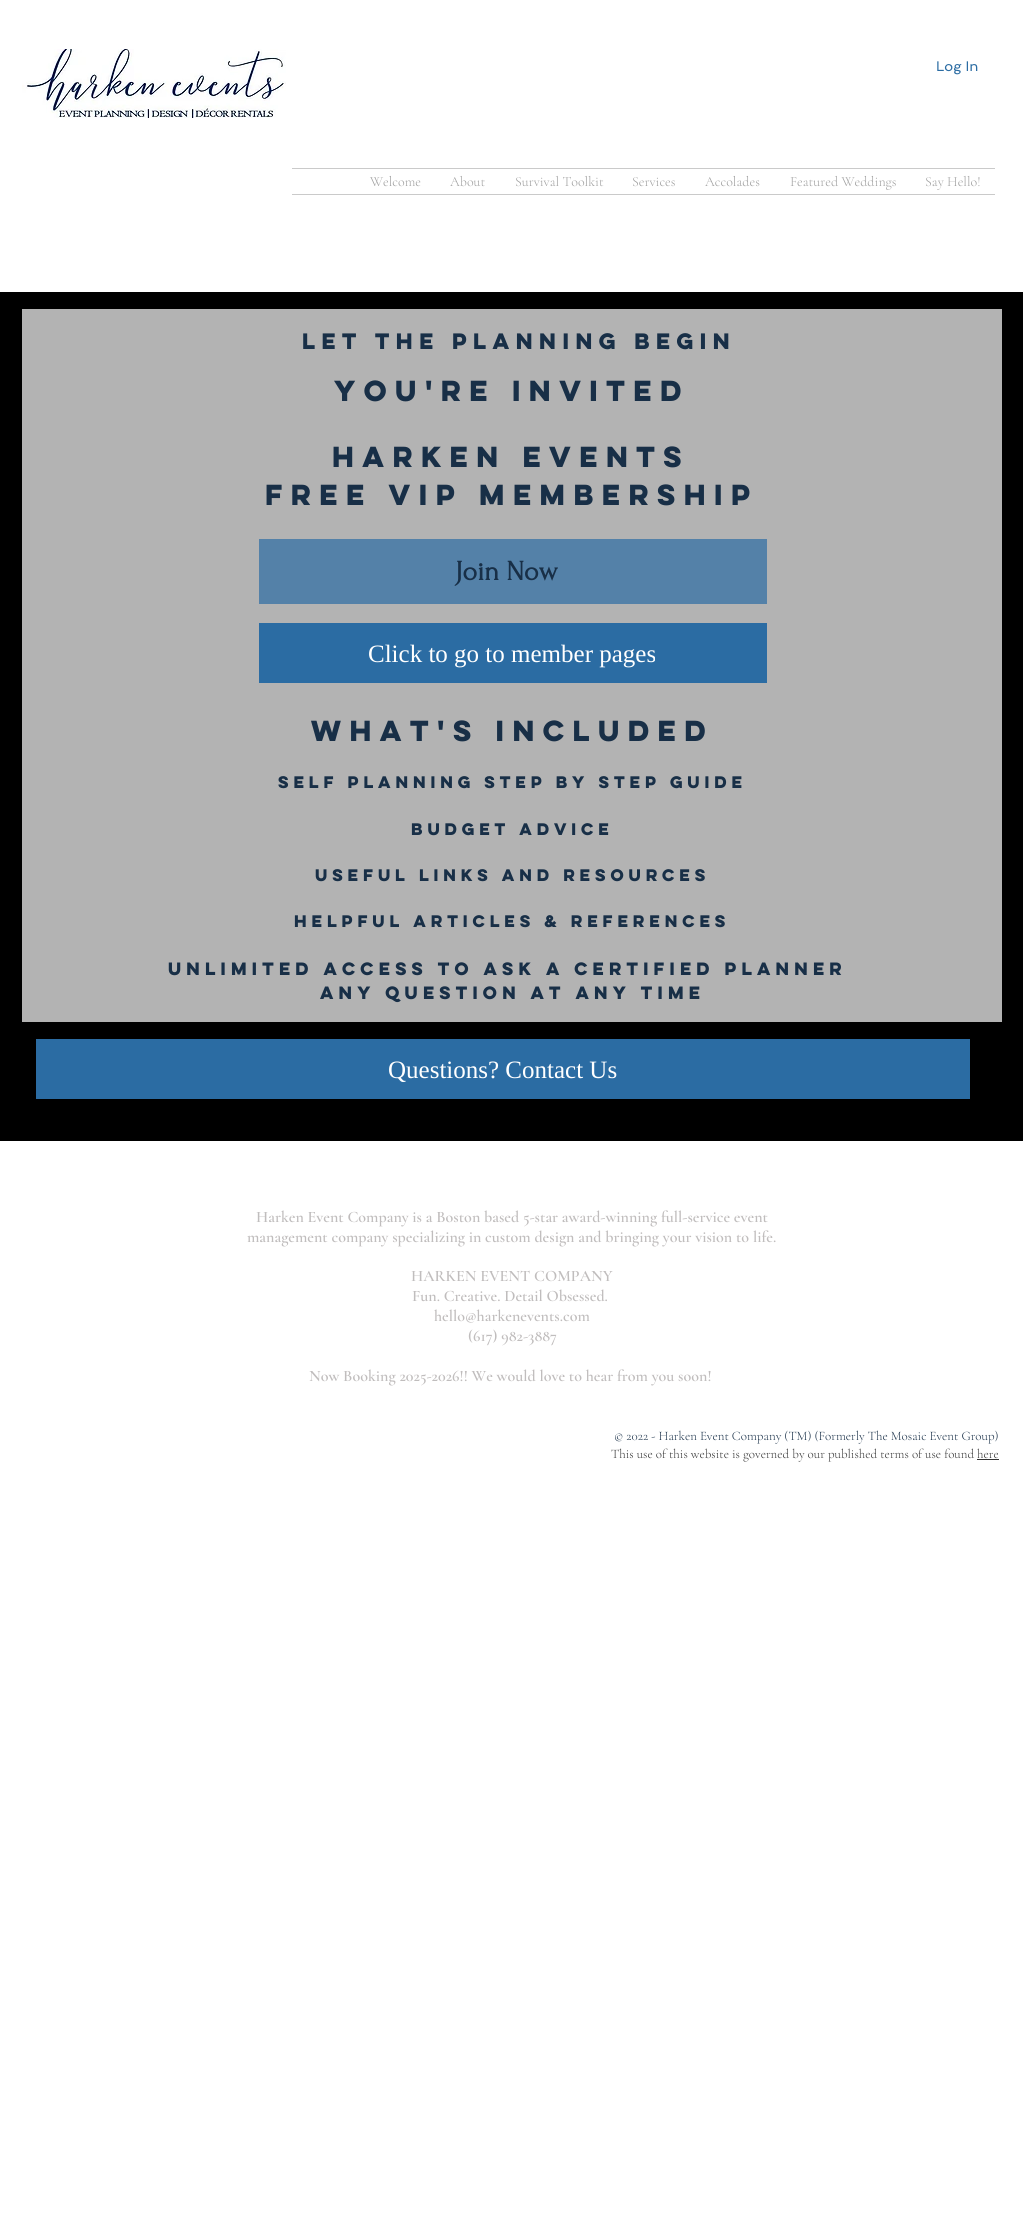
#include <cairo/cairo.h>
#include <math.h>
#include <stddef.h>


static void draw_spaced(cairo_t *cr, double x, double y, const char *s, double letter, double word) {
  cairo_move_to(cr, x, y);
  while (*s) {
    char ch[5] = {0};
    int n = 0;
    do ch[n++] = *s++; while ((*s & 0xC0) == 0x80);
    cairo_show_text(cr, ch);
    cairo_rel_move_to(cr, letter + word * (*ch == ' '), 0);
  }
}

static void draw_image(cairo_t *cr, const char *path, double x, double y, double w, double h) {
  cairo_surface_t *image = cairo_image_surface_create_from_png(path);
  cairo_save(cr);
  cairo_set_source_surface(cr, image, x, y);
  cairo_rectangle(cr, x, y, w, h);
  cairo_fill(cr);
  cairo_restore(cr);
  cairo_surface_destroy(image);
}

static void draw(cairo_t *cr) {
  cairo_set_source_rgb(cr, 1, 1, 1);
  cairo_paint(cr);
  draw_image(cr, "images/1.png", 22, 49, 264, 69);
  cairo_set_source_rgb(cr, 202 / 255.0, 202 / 255.0, 202 / 255.0);
  cairo_rectangle(cr, 292, 168, 703, 1);
  cairo_fill(cr);
  cairo_rectangle(cr, 292, 194, 703, 1);
  cairo_fill(cr);
  cairo_set_source_rgb(cr, 0, 0, 0);
  cairo_rectangle(cr, 0, 292, 1023, 849);
  cairo_fill(cr);
  cairo_set_source_rgb(cr, 179 / 255.0, 179 / 255.0, 179 / 255.0);
  cairo_rectangle(cr, 22, 309, 980, 713);
  cairo_fill(cr);
  cairo_set_source_rgb(cr, 84 / 255.0, 129 / 255.0, 168 / 255.0);
  cairo_rectangle(cr, 259, 539, 508, 65);
  cairo_fill(cr);
  cairo_set_source_rgb(cr, 43 / 255.0, 108 / 255.0, 163 / 255.0);
  cairo_rectangle(cr, 259, 623, 508, 60);
  cairo_fill(cr);
  cairo_rectangle(cr, 36, 1039, 934, 60);
  cairo_fill(cr);
  cairo_set_source_rgb(cr, 51 / 255.0, 51 / 255.0, 51 / 255.0);
  cairo_rectangle(cr, 977, 1459, 22, 1);
  cairo_fill(cr);
  cairo_select_font_face(cr, "Spinnaker", CAIRO_FONT_SLANT_NORMAL, CAIRO_FONT_WEIGHT_NORMAL);
  cairo_set_font_size(cr, 14);
  cairo_set_source_rgb(cr, 43 / 255.0, 108 / 255.0, 163 / 255.0);
  cairo_move_to(cr, 936, 71);
  cairo_show_text(cr, "Log In");
  cairo_select_font_face(cr, "Cormorant Garamond Light", CAIRO_FONT_SLANT_NORMAL, CAIRO_FONT_WEIGHT_NORMAL);
  cairo_set_source_rgb(cr, 158 / 255.0, 158 / 255.0, 158 / 255.0);
  cairo_move_to(cr, 370, 186);
  cairo_show_text(cr, "Welcome");
  cairo_move_to(cr, 450, 186);
  cairo_show_text(cr, "About");
  cairo_move_to(cr, 515, 186);
  cairo_show_text(cr, "Survival Toolkit");
  cairo_move_to(cr, 632, 186);
  cairo_show_text(cr, "Services");
  cairo_move_to(cr, 705, 186);
  cairo_show_text(cr, "Accolades");
  cairo_move_to(cr, 790, 186);
  cairo_show_text(cr, "Featured Weddings");
  cairo_move_to(cr, 925, 186);
  cairo_show_text(cr, "Say Hello!");
  cairo_select_font_face(cr, "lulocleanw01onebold", CAIRO_FONT_SLANT_NORMAL, CAIRO_FONT_WEIGHT_BOLD);
  cairo_set_font_size(cr, 20);
  cairo_set_source_rgb(cr, 24 / 255.0, 47 / 255.0, 71 / 255.0);
  draw_spaced(cr, 302, 349, "Let the Planning Begin", 2, 0);
  cairo_set_font_size(cr, 26);
  draw_spaced(cr, 334, 401, "YOU'RE INVITED", 2.6, 0);
  draw_spaced(cr, 332, 467, "Harken Events", 2.6, 0);
  draw_spaced(cr, 265, 505, "FREE VIP Membership", 2.6, 0);
  cairo_select_font_face(cr, "Forum", CAIRO_FONT_SLANT_NORMAL, CAIRO_FONT_WEIGHT_BOLD);
  cairo_set_font_size(cr, 28);
  cairo_move_to(cr, 455, 580);
  cairo_show_text(cr, "Join Now");
  cairo_select_font_face(cr, "Liberation Serif", CAIRO_FONT_SLANT_NORMAL, CAIRO_FONT_WEIGHT_NORMAL);
  cairo_set_font_size(cr, 25);
  cairo_set_source_rgb(cr, 1, 1, 1);
  cairo_move_to(cr, 368, 662);
  cairo_show_text(cr, "Click to go to member pages");
  cairo_select_font_face(cr, "lulocleanw01onebold", CAIRO_FONT_SLANT_NORMAL, CAIRO_FONT_WEIGHT_BOLD);
  cairo_set_font_size(cr, 26);
  cairo_set_source_rgb(cr, 24 / 255.0, 47 / 255.0, 71 / 255.0);
  draw_spaced(cr, 311, 741, "What's Included", 2.6, 0);
  cairo_set_font_size(cr, 15);
  draw_spaced(cr, 278, 788, "Self Planning Step By Step Guide", 1.5, 0);
  draw_spaced(cr, 411, 835, "Budget Advice", 1.5, 0);
  draw_spaced(cr, 315, 881, "Useful Links and Resources", 1.5, 0);
  draw_spaced(cr, 294, 927, "Helpful Articles & References", 1.5, 0);
  cairo_set_font_size(cr, 16);
  draw_spaced(cr, 168, 975, "Unlimited Access to Ask a Certified Planner", 1.6, 0);
  draw_spaced(cr, 320, 999, "any question at any time", 1.6, 0);
  cairo_select_font_face(cr, "Liberation Serif", CAIRO_FONT_SLANT_NORMAL, CAIRO_FONT_WEIGHT_NORMAL);
  cairo_set_font_size(cr, 25);
  cairo_set_source_rgb(cr, 1, 1, 1);
  cairo_move_to(cr, 388, 1078);
  cairo_show_text(cr, "Questions? Contact Us");
  cairo_select_font_face(cr, "Cormorant Garamond SemiBold", CAIRO_FONT_SLANT_NORMAL, CAIRO_FONT_WEIGHT_NORMAL);
  cairo_set_font_size(cr, 16);
  cairo_set_source_rgb(cr, 192 / 255.0, 189 / 255.0, 189 / 255.0);
  cairo_move_to(cr, 256, 1222);
  cairo_show_text(cr, "Harken Event Company is a Boston based 5-star award-winning full-service event");
  cairo_move_to(cr, 247, 1242);
  cairo_show_text(cr, "management company specializing in custom design and bringing your vision to life.");
  cairo_move_to(cr, 411, 1281);
  cairo_show_text(cr, "HARKEN EVENT COMPANY");
  cairo_move_to(cr, 412, 1301);
  cairo_show_text(cr, "Fun. Creative. Detail Obsessed.");
  cairo_move_to(cr, 434, 1321);
  cairo_show_text(cr, "hello@harkenevents.com");
  cairo_move_to(cr, 468, 1341);
  cairo_show_text(cr, "(617) 982-3887");
  cairo_move_to(cr, 309, 1381);
  cairo_show_text(cr, "Now Booking 2025-2026!! We would love to hear from you soon!");
  cairo_select_font_face(cr, "Cormorant Garamond Light", CAIRO_FONT_SLANT_NORMAL, CAIRO_FONT_WEIGHT_NORMAL);
  cairo_set_font_size(cr, 13);
  cairo_set_source_rgb(cr, 24 / 255.0, 47 / 255.0, 71 / 255.0);
  cairo_move_to(cr, 614, 1440);
  cairo_show_text(cr, "© 2022 - Harken Event Company (TM) (Formerly The Mosaic Event Group)");
  cairo_set_source_rgb(cr, 51 / 255.0, 51 / 255.0, 51 / 255.0);
  cairo_move_to(cr, 611, 1458);
  cairo_show_text(cr, "This use of this website is governed by our published terms of use found here");
}

int main(void) {
  cairo_surface_t *surface = cairo_image_surface_create(CAIRO_FORMAT_RGB24, 1023, 2225);
  cairo_t *cr = cairo_create(surface);
  cairo_font_options_t *options = cairo_font_options_create();
  cairo_font_options_set_hint_metrics(options, CAIRO_HINT_METRICS_OFF);
  cairo_font_options_set_hint_style(options, CAIRO_HINT_STYLE_NONE);
  cairo_set_font_options(cr, options);
  cairo_set_miter_limit(cr, 4);
  draw(cr);
  cairo_surface_write_to_png(surface, "out.png");
  cairo_font_options_destroy(options);
  cairo_destroy(cr);
  cairo_surface_destroy(surface);
  return 0;
}
